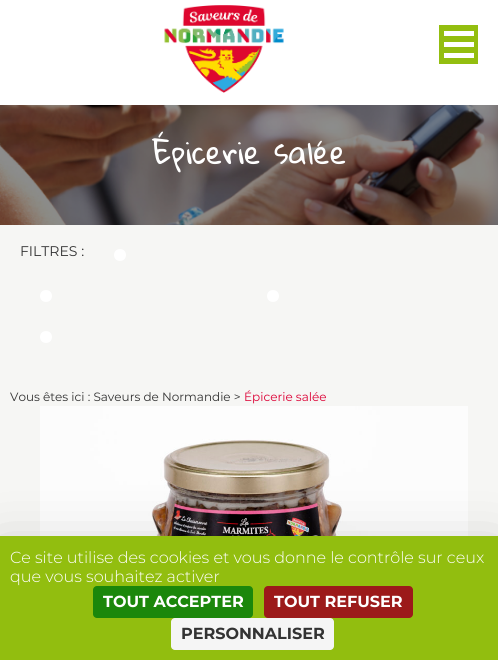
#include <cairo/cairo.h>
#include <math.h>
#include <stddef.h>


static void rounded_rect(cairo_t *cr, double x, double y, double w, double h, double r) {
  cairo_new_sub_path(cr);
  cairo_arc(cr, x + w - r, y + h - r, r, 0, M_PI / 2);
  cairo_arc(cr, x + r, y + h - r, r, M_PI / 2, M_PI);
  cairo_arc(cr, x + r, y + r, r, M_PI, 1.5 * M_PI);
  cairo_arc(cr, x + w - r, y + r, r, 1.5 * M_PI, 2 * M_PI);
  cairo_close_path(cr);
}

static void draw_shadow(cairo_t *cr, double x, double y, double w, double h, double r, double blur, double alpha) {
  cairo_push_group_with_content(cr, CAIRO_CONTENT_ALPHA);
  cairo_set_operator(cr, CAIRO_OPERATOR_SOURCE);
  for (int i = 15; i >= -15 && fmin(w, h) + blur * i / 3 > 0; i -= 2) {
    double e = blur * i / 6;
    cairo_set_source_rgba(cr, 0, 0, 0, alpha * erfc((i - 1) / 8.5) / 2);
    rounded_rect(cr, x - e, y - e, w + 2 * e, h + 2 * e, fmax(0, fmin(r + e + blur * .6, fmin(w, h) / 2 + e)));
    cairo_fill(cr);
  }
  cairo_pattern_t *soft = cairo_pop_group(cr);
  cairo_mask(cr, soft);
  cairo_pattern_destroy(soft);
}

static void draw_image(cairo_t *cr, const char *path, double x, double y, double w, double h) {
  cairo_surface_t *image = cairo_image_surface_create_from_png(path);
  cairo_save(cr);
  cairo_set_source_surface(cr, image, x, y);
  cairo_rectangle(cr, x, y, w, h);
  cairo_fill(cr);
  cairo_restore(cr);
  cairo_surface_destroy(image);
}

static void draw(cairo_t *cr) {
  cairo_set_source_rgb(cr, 1, 1, 1);
  cairo_paint(cr);
  cairo_set_source_rgb(cr, 147 / 255.0, 190 / 255.0, 15 / 255.0);
  cairo_rectangle(cr, 439, 25, 39, 39);
  cairo_fill(cr);
  cairo_set_source_rgb(cr, 1, 1, 1);
  cairo_rectangle(cr, 444, 31, 30, 5);
  cairo_fill(cr);
  cairo_rectangle(cr, 444, 42, 30, 5);
  cairo_fill(cr);
  cairo_rectangle(cr, 444, 53, 30, 5);
  cairo_fill(cr);
  draw_image(cr, "images/1.png", 164, 5, 120, 88);
  cairo_set_source_rgb(cr, 246 / 255.0, 246 / 255.0, 244 / 255.0);
  cairo_rectangle(cr, 0, 225, 498, 311);
  cairo_fill(cr);
  draw_image(cr, "images/2.png", 0, 105, 498, 120);
  cairo_set_source_rgb(cr, 1, 1, 1);
  cairo_arc(cr, 120, 255, 4.5, 0, 2 * M_PI);
  cairo_fill_preserve(cr);
  cairo_set_line_width(cr, 3);
  cairo_stroke(cr);
  cairo_arc(cr, 46, 296, 4.5, 0, 2 * M_PI);
  cairo_fill_preserve(cr);
  cairo_stroke(cr);
  cairo_arc(cr, 273, 296, 4.5, 0, 2 * M_PI);
  cairo_fill_preserve(cr);
  cairo_stroke(cr);
  cairo_arc(cr, 46, 337, 4.5, 0, 2 * M_PI);
  cairo_fill_preserve(cr);
  cairo_stroke(cr);
  draw_image(cr, "images/3.png", 40, 406, 428, 130);
  cairo_set_source_rgb(cr, 0, 0, 0);
  draw_shadow(cr, 0, 556, 498, 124, 0, 30, 0.25);
  cairo_set_source_rgb(cr, 146 / 255.0, 190 / 255.0, 15 / 255.0);
  cairo_rectangle(cr, 0, 536, 498, 124);
  cairo_fill(cr);
  cairo_set_source_rgb(cr, 27 / 255.0, 135 / 255.0, 11 / 255.0);
  rounded_rect(cr, 93, 586, 160, 32, 4);
  cairo_fill(cr);
  cairo_set_source_rgb(cr, 156 / 255.0, 26 / 255.0, 26 / 255.0);
  rounded_rect(cr, 264, 586, 149, 32, 4);
  cairo_fill(cr);
  cairo_set_source_rgb(cr, 245 / 255.0, 245 / 255.0, 245 / 255.0);
  rounded_rect(cr, 171, 618, 163, 32, 4);
  cairo_fill(cr);
  cairo_select_font_face(cr, "Gloria Hallelujah", CAIRO_FONT_SLANT_NORMAL, CAIRO_FONT_WEIGHT_NORMAL);
  cairo_set_font_size(cr, 30);
  cairo_set_source_rgb(cr, 1, 1, 1);
  cairo_move_to(cr, 152, 164);
  cairo_show_text(cr, "Épicerie salée");
  cairo_select_font_face(cr, "Montserrat", CAIRO_FONT_SLANT_NORMAL, CAIRO_FONT_WEIGHT_NORMAL);
  cairo_set_font_size(cr, 14);
  cairo_set_source_rgb(cr, 51 / 255.0, 51 / 255.0, 51 / 255.0);
  cairo_move_to(cr, 20, 256);
  cairo_show_text(cr, "FILTRES :");
  cairo_set_font_size(cr, 12);
  cairo_move_to(cr, 10, 401);
  cairo_show_text(cr, "Vous êtes ici : Saveurs de Normandie >");
  cairo_set_source_rgb(cr, 220 / 255.0, 0, 53 / 255.0);
  cairo_move_to(cr, 244, 401);
  cairo_show_text(cr, "Épicerie salée");
  cairo_select_font_face(cr, "Montserrat Light", CAIRO_FONT_SLANT_NORMAL, CAIRO_FONT_WEIGHT_NORMAL);
  cairo_set_font_size(cr, 16);
  cairo_set_source_rgb(cr, 1, 1, 1);
  cairo_move_to(cr, 10, 563);
  cairo_show_text(cr, "Ce site utilise des cookies et vous donne le contrôle sur ceux");
  cairo_move_to(cr, 10, 582);
  cairo_show_text(cr, "que vous souhaitez activer");
  cairo_select_font_face(cr, "Montserrat", CAIRO_FONT_SLANT_NORMAL, CAIRO_FONT_WEIGHT_BOLD);
  cairo_move_to(cr, 103, 607);
  cairo_show_text(cr, "TOUT ACCEPTER");
  cairo_move_to(cr, 274, 607);
  cairo_show_text(cr, "TOUT REFUSER");
  cairo_set_source_rgb(cr, 51 / 255.0, 51 / 255.0, 51 / 255.0);
  cairo_move_to(cr, 181, 639);
  cairo_show_text(cr, "PERSONNALISER");
}

int main(void) {
  cairo_surface_t *surface = cairo_image_surface_create(CAIRO_FORMAT_RGB24, 498, 660);
  cairo_t *cr = cairo_create(surface);
  cairo_font_options_t *options = cairo_font_options_create();
  cairo_font_options_set_hint_metrics(options, CAIRO_HINT_METRICS_OFF);
  cairo_font_options_set_hint_style(options, CAIRO_HINT_STYLE_NONE);
  cairo_set_font_options(cr, options);
  cairo_set_miter_limit(cr, 4);
  draw(cr);
  cairo_surface_write_to_png(surface, "out.png");
  cairo_font_options_destroy(options);
  cairo_destroy(cr);
  cairo_surface_destroy(surface);
  return 0;
}
